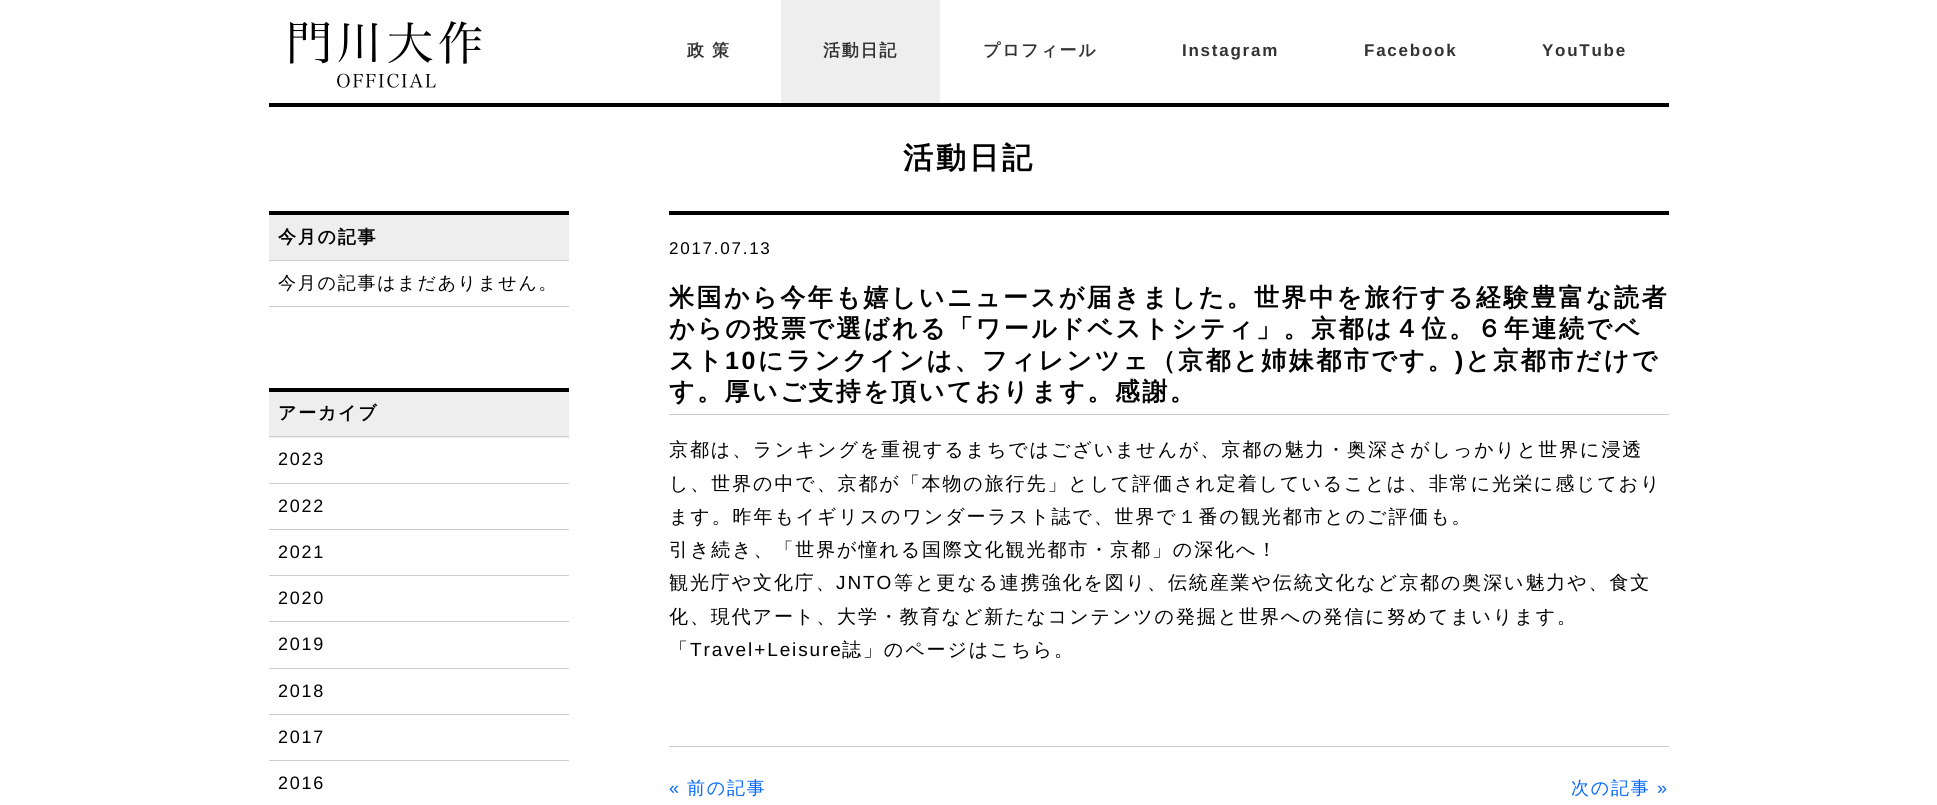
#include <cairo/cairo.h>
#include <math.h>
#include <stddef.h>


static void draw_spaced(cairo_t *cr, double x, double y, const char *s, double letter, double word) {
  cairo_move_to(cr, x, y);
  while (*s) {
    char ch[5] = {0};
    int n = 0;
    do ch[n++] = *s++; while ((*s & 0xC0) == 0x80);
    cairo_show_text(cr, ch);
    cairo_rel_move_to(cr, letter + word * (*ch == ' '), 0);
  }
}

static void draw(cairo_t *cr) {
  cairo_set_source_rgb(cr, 1, 1, 1);
  cairo_paint(cr);
  cairo_set_source_rgb(cr, 238 / 255.0, 238 / 255.0, 238 / 255.0);
  cairo_rectangle(cr, 781, 0, 159, 103);
  cairo_fill(cr);
  cairo_set_source_rgb(cr, 0, 0, 0);
  cairo_rectangle(cr, 269, 103, 1400, 4);
  cairo_fill(cr);
  cairo_set_source_rgb(cr, 238 / 255.0, 238 / 255.0, 238 / 255.0);
  cairo_rectangle(cr, 269, 215, 300, 45);
  cairo_fill(cr);
  cairo_set_source_rgb(cr, 0, 0, 0);
  cairo_rectangle(cr, 269, 211, 300, 4);
  cairo_fill(cr);
  cairo_set_source_rgb(cr, 204 / 255.0, 204 / 255.0, 204 / 255.0);
  cairo_rectangle(cr, 269, 260, 300, 1);
  cairo_fill(cr);
  cairo_rectangle(cr, 269, 306, 300, 1);
  cairo_fill(cr);
  cairo_set_source_rgb(cr, 238 / 255.0, 238 / 255.0, 238 / 255.0);
  cairo_rectangle(cr, 269, 392, 300, 46);
  cairo_fill(cr);
  cairo_set_source_rgb(cr, 0, 0, 0);
  cairo_rectangle(cr, 269, 388, 300, 4);
  cairo_fill(cr);
  cairo_set_source_rgb(cr, 204 / 255.0, 204 / 255.0, 204 / 255.0);
  cairo_rectangle(cr, 269, 436, 300, 1);
  cairo_fill(cr);
  cairo_rectangle(cr, 269, 483, 300, 1);
  cairo_fill(cr);
  cairo_rectangle(cr, 269, 529, 300, 1);
  cairo_fill(cr);
  cairo_rectangle(cr, 269, 575, 300, 1);
  cairo_fill(cr);
  cairo_rectangle(cr, 269, 621, 300, 1);
  cairo_fill(cr);
  cairo_rectangle(cr, 269, 668, 300, 1);
  cairo_fill(cr);
  cairo_rectangle(cr, 269, 714, 300, 1);
  cairo_fill(cr);
  cairo_rectangle(cr, 269, 760, 300, 1);
  cairo_fill(cr);
  cairo_set_source_rgb(cr, 0, 0, 0);
  cairo_rectangle(cr, 669, 211, 1000, 4);
  cairo_fill(cr);
  cairo_set_source_rgb(cr, 204 / 255.0, 204 / 255.0, 204 / 255.0);
  cairo_rectangle(cr, 669, 414, 1000, 1);
  cairo_fill(cr);
  cairo_rectangle(cr, 669, 746, 1000, 1);
  cairo_fill(cr);
  cairo_select_font_face(cr, "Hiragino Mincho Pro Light", CAIRO_FONT_SLANT_NORMAL, CAIRO_FONT_WEIGHT_NORMAL);
  cairo_set_font_size(cr, 46);
  cairo_set_source_rgb(cr, 0, 0, 0);
  draw_spaced(cr, 286, 60, "門川大作", 4.5, 0);
  cairo_set_font_size(cr, 18.5);
  draw_spaced(cr, 336, 88, "OFFICIAL", 1.75, 0);
  cairo_select_font_face(cr, "WenQuanYi Zen Hei", CAIRO_FONT_SLANT_NORMAL, CAIRO_FONT_WEIGHT_BOLD);
  cairo_set_font_size(cr, 17);
  cairo_set_source_rgb(cr, 51 / 255.0, 51 / 255.0, 51 / 255.0);
  draw_spaced(cr, 687, 56, "政策", 8, 0);
  draw_spaced(cr, 823, 56, "活動日記", 1.75, 0);
  draw_spaced(cr, 983, 56, "プロフィール", 1.75, 0);
  cairo_select_font_face(cr, "Liberation Sans", CAIRO_FONT_SLANT_NORMAL, CAIRO_FONT_WEIGHT_BOLD);
  draw_spaced(cr, 1182, 56, "Instagram", 1.75, 0);
  draw_spaced(cr, 1364, 56, "Facebook", 1.75, 0);
  draw_spaced(cr, 1542, 56, "YouTube", 1.75, 0);
  cairo_select_font_face(cr, "WenQuanYi Zen Hei", CAIRO_FONT_SLANT_NORMAL, CAIRO_FONT_WEIGHT_BOLD);
  cairo_set_font_size(cr, 30);
  cairo_set_source_rgb(cr, 0, 0, 0);
  draw_spaced(cr, 903, 168, "活動日記", 3, 0);
  cairo_set_font_size(cr, 18);
  draw_spaced(cr, 278, 243, "今月の記事", 1.75, 0);
  cairo_select_font_face(cr, "WenQuanYi Zen Hei Medium", CAIRO_FONT_SLANT_NORMAL, CAIRO_FONT_WEIGHT_NORMAL);
  draw_spaced(cr, 278, 289, "今月の記事はまだありません。", 1.75, 0);
  cairo_select_font_face(cr, "WenQuanYi Zen Hei", CAIRO_FONT_SLANT_NORMAL, CAIRO_FONT_WEIGHT_BOLD);
  draw_spaced(cr, 278, 419, "アーカイブ", 1.75, 0);
  cairo_select_font_face(cr, "Liberation Sans", CAIRO_FONT_SLANT_NORMAL, CAIRO_FONT_WEIGHT_NORMAL);
  draw_spaced(cr, 278, 465, "2023", 1.75, 0);
  draw_spaced(cr, 278, 512, "2022", 1.75, 0);
  draw_spaced(cr, 278, 558, "2021", 1.75, 0);
  draw_spaced(cr, 278, 604, "2020", 1.75, 0);
  draw_spaced(cr, 278, 650, "2019", 1.75, 0);
  draw_spaced(cr, 278, 697, "2018", 1.75, 0);
  draw_spaced(cr, 278, 743, "2017", 1.75, 0);
  draw_spaced(cr, 278, 789, "2016", 1.75, 0);
  cairo_set_font_size(cr, 17);
  draw_spaced(cr, 669, 254, "2017.07.13", 1.75, 0);
  cairo_select_font_face(cr, "WenQuanYi Zen Hei", CAIRO_FONT_SLANT_NORMAL, CAIRO_FONT_WEIGHT_BOLD);
  cairo_set_font_size(cr, 25);
  draw_spaced(cr, 669, 306, "米国から今年も嬉しいニュースが届きました。世界中を旅行する経験豊富な読者", 2.5, 0);
  draw_spaced(cr, 669, 337, "からの投票で選ばれる「ワールドベストシティ」。京都は４位。６年連続でベ", 2.5, 0);
  draw_spaced(cr, 669, 369, "スト", 2.5, 0);
  cairo_select_font_face(cr, "Liberation Sans", CAIRO_FONT_SLANT_NORMAL, CAIRO_FONT_WEIGHT_BOLD);
  draw_spaced(cr, 725, 369, "10", 2.5, 0);
  cairo_select_font_face(cr, "WenQuanYi Zen Hei", CAIRO_FONT_SLANT_NORMAL, CAIRO_FONT_WEIGHT_BOLD);
  draw_spaced(cr, 758, 369, "にランクインは、フィレンツェ（京都と姉妹都市です。", 2.5, 0);
  cairo_select_font_face(cr, "Liberation Sans", CAIRO_FONT_SLANT_NORMAL, CAIRO_FONT_WEIGHT_BOLD);
  draw_spaced(cr, 1455, 369, ")", 2.5, 0);
  cairo_select_font_face(cr, "WenQuanYi Zen Hei", CAIRO_FONT_SLANT_NORMAL, CAIRO_FONT_WEIGHT_BOLD);
  draw_spaced(cr, 1465, 369, "と京都市だけで", 2.5, 0);
  draw_spaced(cr, 669, 400, "す。厚いご支持を頂いております。感謝。", 2.5, 0);
  cairo_select_font_face(cr, "WenQuanYi Zen Hei Medium", CAIRO_FONT_SLANT_NORMAL, CAIRO_FONT_WEIGHT_NORMAL);
  cairo_set_font_size(cr, 19);
  draw_spaced(cr, 669, 456, "京都は、ランキングを重視するまちではございませんが、京都の魅力・奥深さがしっかりと世界に浸透", 1.9, 0);
  draw_spaced(cr, 669, 490, "し、世界の中で、京都が「本物の旅行先」として評価され定着していることは、非常に光栄に感じており", 1.9, 0);
  draw_spaced(cr, 669, 523, "ます。昨年もイギリスのワンダーラスト誌で、世界で１番の観光都市とのご評価も。", 1.9, 0);
  draw_spaced(cr, 669, 556, "引き続き、「世界が憧れる国際文化観光都市・京都」の深化へ！", 1.9, 0);
  draw_spaced(cr, 669, 589, "観光庁や文化庁、", 1.9, 0);
  cairo_select_font_face(cr, "Liberation Sans", CAIRO_FONT_SLANT_NORMAL, CAIRO_FONT_WEIGHT_NORMAL);
  draw_spaced(cr, 836, 589, "JNTO", 1.9, 0);
  cairo_select_font_face(cr, "WenQuanYi Zen Hei Medium", CAIRO_FONT_SLANT_NORMAL, CAIRO_FONT_WEIGHT_NORMAL);
  draw_spaced(cr, 894, 589, "等と更なる連携強化を図り、伝統産業や伝統文化など京都の奥深い魅力や、食文", 1.9, 0);
  draw_spaced(cr, 669, 623, "化、現代アート、大学・教育など新たなコンテンツの発掘と世界への発信に努めてまいります。", 1.9, 0);
  draw_spaced(cr, 669, 656, "「", 1.9, 0);
  cairo_select_font_face(cr, "Liberation Sans", CAIRO_FONT_SLANT_NORMAL, CAIRO_FONT_WEIGHT_NORMAL);
  draw_spaced(cr, 690, 656, "Travel+Leisure", 1.9, 0);
  cairo_select_font_face(cr, "WenQuanYi Zen Hei Medium", CAIRO_FONT_SLANT_NORMAL, CAIRO_FONT_WEIGHT_NORMAL);
  draw_spaced(cr, 842, 656, "誌」のページはこちら。", 1.9, 0);
  cairo_select_font_face(cr, "Liberation Sans", CAIRO_FONT_SLANT_NORMAL, CAIRO_FONT_WEIGHT_NORMAL);
  cairo_set_font_size(cr, 18);
  cairo_set_source_rgb(cr, 0, 102 / 255.0, 1);
  draw_spaced(cr, 669, 794, "«", 1.75, 0);
  cairo_select_font_face(cr, "WenQuanYi Zen Hei Medium", CAIRO_FONT_SLANT_NORMAL, CAIRO_FONT_WEIGHT_NORMAL);
  draw_spaced(cr, 687, 794, "前の記事", 1.75, 0);
  draw_spaced(cr, 1571, 794, "次の記事", 1.75, 0);
  cairo_select_font_face(cr, "Liberation Sans", CAIRO_FONT_SLANT_NORMAL, CAIRO_FONT_WEIGHT_NORMAL);
  draw_spaced(cr, 1657, 794, "»", 1.75, 0);
}

int main(void) {
  cairo_surface_t *surface = cairo_image_surface_create(CAIRO_FORMAT_RGB24, 1937, 805);
  cairo_t *cr = cairo_create(surface);
  cairo_font_options_t *options = cairo_font_options_create();
  cairo_font_options_set_hint_metrics(options, CAIRO_HINT_METRICS_OFF);
  cairo_font_options_set_hint_style(options, CAIRO_HINT_STYLE_NONE);
  cairo_set_font_options(cr, options);
  cairo_set_miter_limit(cr, 4);
  draw(cr);
  cairo_surface_write_to_png(surface, "out.png");
  cairo_font_options_destroy(options);
  cairo_destroy(cr);
  cairo_surface_destroy(surface);
  return 0;
}
